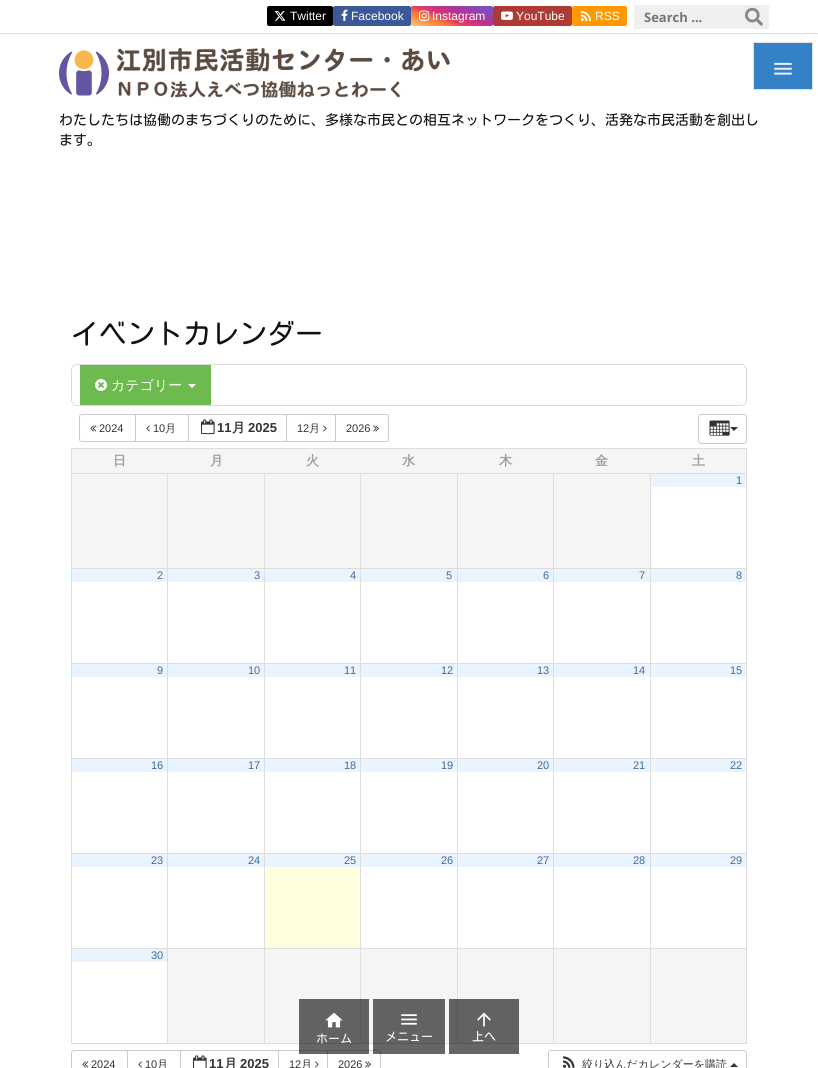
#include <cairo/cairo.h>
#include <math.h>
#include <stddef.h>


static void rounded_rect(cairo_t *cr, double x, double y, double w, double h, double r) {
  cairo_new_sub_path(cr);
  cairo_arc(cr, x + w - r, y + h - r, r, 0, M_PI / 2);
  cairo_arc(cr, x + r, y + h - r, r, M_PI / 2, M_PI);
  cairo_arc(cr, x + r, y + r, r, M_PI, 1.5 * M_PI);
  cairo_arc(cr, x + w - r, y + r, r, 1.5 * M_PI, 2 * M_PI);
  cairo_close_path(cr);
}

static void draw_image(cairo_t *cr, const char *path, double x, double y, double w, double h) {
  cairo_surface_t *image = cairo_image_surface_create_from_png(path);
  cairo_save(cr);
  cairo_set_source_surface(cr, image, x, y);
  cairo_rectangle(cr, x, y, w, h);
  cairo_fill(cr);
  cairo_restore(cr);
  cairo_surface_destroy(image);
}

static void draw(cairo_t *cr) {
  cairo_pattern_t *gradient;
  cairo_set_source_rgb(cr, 1, 1, 1);
  cairo_paint(cr);
  cairo_set_source_rgb(cr, 102 / 255.0, 102 / 255.0, 102 / 255.0);
  cairo_rectangle(cr, 449, 1044, 70, 10);
  cairo_fill(cr);
  cairo_set_source_rgb(cr, 221 / 255.0, 221 / 255.0, 221 / 255.0);
  cairo_rectangle(cr, 0, 33, 818, 1);
  cairo_fill(cr);
  cairo_set_source_rgb(cr, 0, 0, 0);
  rounded_rect(cr, 267, 6, 66, 20, 2);
  cairo_fill(cr);
  draw_image(cr, "images/1.png", 274, 11, 12, 10);
  cairo_set_source_rgb(cr, 59 / 255.0, 89 / 255.0, 152 / 255.0);
  rounded_rect(cr, 333, 6, 78, 20, 2);
  cairo_fill(cr);
  draw_image(cr, "images/2.png", 341, 9, 7, 12);
  gradient = cairo_pattern_create_linear(460, -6, 444, 38);
  cairo_pattern_add_color_stop_rgba(gradient, 0, 101 / 255.0, 89 / 255.0, 202 / 255.0, 1);
  cairo_pattern_add_color_stop_rgba(gradient, 0.4, 188 / 255.0, 49 / 255.0, 143 / 255.0, 1);
  cairo_pattern_add_color_stop_rgba(gradient, 0.6, 227 / 255.0, 63 / 255.0, 95 / 255.0, 1);
  cairo_pattern_add_color_stop_rgba(gradient, 0.7, 247 / 255.0, 118 / 255.0, 56 / 255.0, 1);
  cairo_pattern_add_color_stop_rgba(gradient, 1, 254 / 255.0, 198 / 255.0, 109 / 255.0, 1);
  cairo_set_source(cr, gradient);
  cairo_pattern_destroy(gradient);
  rounded_rect(cr, 411, 6, 82, 20, 2);
  cairo_fill(cr);
  draw_image(cr, "images/3.png", 419, 10, 11, 11);
  cairo_set_source_rgb(cr, 174 / 255.0, 58 / 255.0, 52 / 255.0);
  rounded_rect(cr, 493, 6, 79, 20, 2);
  cairo_fill(cr);
  draw_image(cr, "images/4.png", 501, 11, 12, 9);
  cairo_set_source_rgb(cr, 254 / 255.0, 153 / 255.0, 0);
  rounded_rect(cr, 572, 6, 55, 20, 2);
  cairo_fill(cr);
  draw_image(cr, "images/5.png", 580, 11, 11, 11);
  cairo_set_source_rgb(cr, 239 / 255.0, 239 / 255.0, 239 / 255.0);
  cairo_rectangle(cr, 634, 5, 135, 24);
  cairo_fill(cr);
  draw_image(cr, "images/6.png", 745, 7, 18, 19);
  cairo_set_source_rgb(cr, 53 / 255.0, 129 / 255.0, 197 / 255.0);
  cairo_rectangle(cr, 753.5, 42.5, 59, 47);
  cairo_fill_preserve(cr);
  cairo_set_source_rgb(cr, 224 / 255.0, 224 / 255.0, 224 / 255.0);
  cairo_set_line_width(cr, 1);
  cairo_stroke(cr);
  draw_image(cr, "images/7.png", 774, 62, 18, 13);
  draw_image(cr, "images/8.png", 59, 50, 50, 46);
  draw_image(cr, "images/9.png", 117, 48, 333, 50);
  rounded_rect(cr, 71.5, 364.5, 675, 41, 5.5);
  cairo_set_source_rgb(cr, 219 / 255.0, 219 / 255.0, 219 / 255.0);
  cairo_stroke(cr);
  cairo_set_source_rgb(cr, 109 / 255.0, 187 / 255.0, 79 / 255.0);
  cairo_rectangle(cr, 80, 365, 131, 40);
  cairo_fill(cr);
  draw_image(cr, "images/10.png", 95, 379, 12, 12);
  cairo_set_source_rgb(cr, 1, 1, 1);
  cairo_new_path(cr);
  cairo_move_to(cr, 188, 384);
  cairo_line_to(cr, 196, 384);
  cairo_line_to(cr, 192, 388);
  cairo_close_path(cr);
  cairo_fill(cr);
  cairo_new_path(cr);
  cairo_move_to(cr, 82, 414.5);
  cairo_line_to(cr, 135.5, 414.5);
  cairo_line_to(cr, 135.5, 441.5);
  cairo_line_to(cr, 82, 441.5);
  cairo_curve_to(cr, 80.5, 441.5, 79.5, 440.5, 79.5, 439);
  cairo_line_to(cr, 79.5, 417);
  cairo_curve_to(cr, 79.5, 415.5, 80.5, 414.5, 82, 414.5);
  cairo_close_path(cr);
  cairo_set_source_rgb(cr, 204 / 255.0, 204 / 255.0, 204 / 255.0);
  cairo_stroke(cr);
  draw_image(cr, "images/11.png", 90, 425, 7, 7);
  cairo_rectangle(cr, 135.5, 414.5, 53, 27);
  cairo_stroke(cr);
  draw_image(cr, "images/12.png", 146, 425, 4, 7);
  cairo_rectangle(cr, 188.5, 414.5, 98, 27);
  cairo_stroke(cr);
  draw_image(cr, "images/13.png", 201, 419, 14, 16);
  cairo_rectangle(cr, 286.5, 414.5, 49, 27);
  cairo_stroke(cr);
  draw_image(cr, "images/14.png", 323, 425, 4, 7);
  cairo_set_source_rgb(cr, 1, 1, 1);
  cairo_new_path(cr);
  cairo_move_to(cr, 335.5, 414.5);
  cairo_line_to(cr, 386, 414.5);
  cairo_curve_to(cr, 387.5, 414.5, 388.5, 415.5, 388.5, 417);
  cairo_line_to(cr, 388.5, 439);
  cairo_curve_to(cr, 388.5, 440.5, 387.5, 441.5, 386, 441.5);
  cairo_line_to(cr, 335.5, 441.5);
  cairo_close_path(cr);
  cairo_fill_preserve(cr);
  cairo_set_source_rgb(cr, 204 / 255.0, 204 / 255.0, 204 / 255.0);
  cairo_stroke(cr);
  draw_image(cr, "images/15.png", 373, 425, 6, 7);
  rounded_rect(cr, 698.5, 414.5, 48, 29, 2.5);
  cairo_stroke(cr);
  draw_image(cr, "images/16.png", 709, 420, 21, 16);
  cairo_set_source_rgb(cr, 51 / 255.0, 51 / 255.0, 51 / 255.0);
  cairo_new_path(cr);
  cairo_move_to(cr, 730, 427);
  cairo_line_to(cr, 738, 427);
  cairo_line_to(cr, 734, 431);
  cairo_close_path(cr);
  cairo_fill(cr);
  cairo_set_source_rgb(cr, 221 / 255.0, 221 / 255.0, 221 / 255.0);
  cairo_rectangle(cr, 71, 448, 676, 1);
  cairo_fill(cr);
  cairo_rectangle(cr, 746, 448, 1, 596);
  cairo_fill(cr);
  cairo_rectangle(cr, 71, 1043, 676, 1);
  cairo_fill(cr);
  cairo_set_source_rgb(cr, 88 / 255.0, 88 / 255.0, 88 / 255.0);
  cairo_rectangle(cr, 449, 1043, 70, 1);
  cairo_fill(cr);
  cairo_set_source_rgb(cr, 221 / 255.0, 221 / 255.0, 221 / 255.0);
  cairo_rectangle(cr, 71, 448, 1, 596);
  cairo_fill(cr);
  cairo_set_source_rgb(cr, 245 / 255.0, 245 / 255.0, 245 / 255.0);
  cairo_rectangle(cr, 72, 449, 674, 24);
  cairo_fill(cr);
  cairo_rectangle(cr, 72, 474, 95, 94);
  cairo_fill(cr);
  cairo_set_source_rgb(cr, 221 / 255.0, 221 / 255.0, 221 / 255.0);
  cairo_rectangle(cr, 650, 473, 97, 1);
  cairo_fill(cr);
  cairo_rectangle(cr, 650, 568, 97, 1);
  cairo_fill(cr);
  cairo_rectangle(cr, 650, 663, 97, 1);
  cairo_fill(cr);
  cairo_rectangle(cr, 650, 758, 97, 1);
  cairo_fill(cr);
  cairo_rectangle(cr, 650, 853, 97, 1);
  cairo_fill(cr);
  cairo_rectangle(cr, 650, 948, 97, 1);
  cairo_fill(cr);
  cairo_rectangle(cr, 650, 948, 1, 96);
  cairo_fill(cr);
  cairo_rectangle(cr, 553, 948, 98, 1);
  cairo_fill(cr);
  cairo_rectangle(cr, 650, 853, 1, 96);
  cairo_fill(cr);
  cairo_rectangle(cr, 553, 853, 98, 1);
  cairo_fill(cr);
  cairo_rectangle(cr, 650, 758, 1, 96);
  cairo_fill(cr);
  cairo_rectangle(cr, 553, 758, 98, 1);
  cairo_fill(cr);
  cairo_rectangle(cr, 650, 663, 1, 96);
  cairo_fill(cr);
  cairo_rectangle(cr, 553, 663, 98, 1);
  cairo_fill(cr);
  cairo_rectangle(cr, 650, 568, 1, 96);
  cairo_fill(cr);
  cairo_rectangle(cr, 553, 568, 98, 1);
  cairo_fill(cr);
  cairo_rectangle(cr, 650, 473, 1, 96);
  cairo_fill(cr);
  cairo_rectangle(cr, 553, 473, 98, 1);
  cairo_fill(cr);
  cairo_rectangle(cr, 553, 948, 1, 96);
  cairo_fill(cr);
  cairo_rectangle(cr, 457, 948, 97, 1);
  cairo_fill(cr);
  cairo_rectangle(cr, 553, 853, 1, 96);
  cairo_fill(cr);
  cairo_rectangle(cr, 457, 853, 97, 1);
  cairo_fill(cr);
  cairo_rectangle(cr, 553, 758, 1, 96);
  cairo_fill(cr);
  cairo_rectangle(cr, 457, 758, 97, 1);
  cairo_fill(cr);
  cairo_rectangle(cr, 553, 663, 1, 96);
  cairo_fill(cr);
  cairo_rectangle(cr, 457, 663, 97, 1);
  cairo_fill(cr);
  cairo_rectangle(cr, 553, 568, 1, 96);
  cairo_fill(cr);
  cairo_rectangle(cr, 457, 568, 97, 1);
  cairo_fill(cr);
  cairo_rectangle(cr, 553, 473, 1, 96);
  cairo_fill(cr);
  cairo_rectangle(cr, 457, 473, 97, 1);
  cairo_fill(cr);
  cairo_rectangle(cr, 457, 948, 1, 51);
  cairo_fill(cr);
  cairo_rectangle(cr, 360, 948, 98, 1);
  cairo_fill(cr);
  cairo_rectangle(cr, 457, 853, 1, 96);
  cairo_fill(cr);
  cairo_rectangle(cr, 360, 853, 98, 1);
  cairo_fill(cr);
  cairo_rectangle(cr, 457, 758, 1, 96);
  cairo_fill(cr);
  cairo_rectangle(cr, 360, 758, 98, 1);
  cairo_fill(cr);
  cairo_rectangle(cr, 457, 663, 1, 96);
  cairo_fill(cr);
  cairo_rectangle(cr, 360, 663, 98, 1);
  cairo_fill(cr);
  cairo_rectangle(cr, 457, 568, 1, 96);
  cairo_fill(cr);
  cairo_rectangle(cr, 360, 568, 98, 1);
  cairo_fill(cr);
  cairo_rectangle(cr, 457, 473, 1, 96);
  cairo_fill(cr);
  cairo_rectangle(cr, 360, 473, 98, 1);
  cairo_fill(cr);
  cairo_rectangle(cr, 360, 948, 1, 96);
  cairo_fill(cr);
  cairo_rectangle(cr, 264, 948, 97, 1);
  cairo_fill(cr);
  cairo_rectangle(cr, 360, 853, 1, 96);
  cairo_fill(cr);
  cairo_rectangle(cr, 264, 853, 97, 1);
  cairo_fill(cr);
  cairo_rectangle(cr, 360, 758, 1, 96);
  cairo_fill(cr);
  cairo_rectangle(cr, 264, 758, 97, 1);
  cairo_fill(cr);
  cairo_rectangle(cr, 360, 663, 1, 96);
  cairo_fill(cr);
  cairo_rectangle(cr, 264, 663, 97, 1);
  cairo_fill(cr);
  cairo_rectangle(cr, 360, 568, 1, 96);
  cairo_fill(cr);
  cairo_rectangle(cr, 264, 568, 97, 1);
  cairo_fill(cr);
  cairo_rectangle(cr, 360, 473, 1, 96);
  cairo_fill(cr);
  cairo_rectangle(cr, 264, 473, 97, 1);
  cairo_fill(cr);
  cairo_rectangle(cr, 264, 948, 1, 96);
  cairo_fill(cr);
  cairo_rectangle(cr, 167, 948, 98, 1);
  cairo_fill(cr);
  cairo_rectangle(cr, 264, 853, 1, 96);
  cairo_fill(cr);
  cairo_rectangle(cr, 167, 853, 98, 1);
  cairo_fill(cr);
  cairo_rectangle(cr, 264, 758, 1, 96);
  cairo_fill(cr);
  cairo_rectangle(cr, 167, 758, 98, 1);
  cairo_fill(cr);
  cairo_rectangle(cr, 264, 663, 1, 96);
  cairo_fill(cr);
  cairo_rectangle(cr, 167, 663, 98, 1);
  cairo_fill(cr);
  cairo_rectangle(cr, 264, 568, 1, 96);
  cairo_fill(cr);
  cairo_rectangle(cr, 167, 568, 98, 1);
  cairo_fill(cr);
  cairo_rectangle(cr, 264, 473, 1, 96);
  cairo_fill(cr);
  cairo_rectangle(cr, 167, 473, 98, 1);
  cairo_fill(cr);
  cairo_rectangle(cr, 167, 948, 1, 96);
  cairo_fill(cr);
  cairo_rectangle(cr, 71, 948, 97, 1);
  cairo_fill(cr);
  cairo_rectangle(cr, 167, 853, 1, 96);
  cairo_fill(cr);
  cairo_rectangle(cr, 71, 853, 97, 1);
  cairo_fill(cr);
  cairo_rectangle(cr, 167, 758, 1, 96);
  cairo_fill(cr);
  cairo_rectangle(cr, 71, 758, 97, 1);
  cairo_fill(cr);
  cairo_rectangle(cr, 167, 663, 1, 96);
  cairo_fill(cr);
  cairo_rectangle(cr, 71, 663, 97, 1);
  cairo_fill(cr);
  cairo_rectangle(cr, 167, 568, 1, 96);
  cairo_fill(cr);
  cairo_rectangle(cr, 71, 568, 97, 1);
  cairo_fill(cr);
  cairo_rectangle(cr, 167, 473, 1, 96);
  cairo_fill(cr);
  cairo_rectangle(cr, 71, 473, 97, 1);
  cairo_fill(cr);
  cairo_set_source_rgb(cr, 245 / 255.0, 245 / 255.0, 245 / 255.0);
  cairo_rectangle(cr, 168, 474, 96, 94);
  cairo_fill(cr);
  cairo_rectangle(cr, 265, 474, 95, 94);
  cairo_fill(cr);
  cairo_rectangle(cr, 361, 474, 96, 94);
  cairo_fill(cr);
  cairo_rectangle(cr, 458, 474, 95, 94);
  cairo_fill(cr);
  cairo_rectangle(cr, 554, 474, 96, 94);
  cairo_fill(cr);
  cairo_set_source_rgb(cr, 234 / 255.0, 244 / 255.0, 1);
  cairo_rectangle(cr, 651, 474, 95, 13);
  cairo_fill(cr);
  cairo_rectangle(cr, 72, 569, 95, 13);
  cairo_fill(cr);
  cairo_rectangle(cr, 168, 569, 96, 13);
  cairo_fill(cr);
  cairo_rectangle(cr, 265, 569, 95, 13);
  cairo_fill(cr);
  cairo_rectangle(cr, 361, 569, 96, 13);
  cairo_fill(cr);
  cairo_rectangle(cr, 458, 569, 95, 13);
  cairo_fill(cr);
  cairo_rectangle(cr, 554, 569, 96, 13);
  cairo_fill(cr);
  cairo_rectangle(cr, 651, 569, 95, 13);
  cairo_fill(cr);
  cairo_rectangle(cr, 72, 664, 95, 13);
  cairo_fill(cr);
  cairo_rectangle(cr, 168, 664, 96, 13);
  cairo_fill(cr);
  cairo_rectangle(cr, 265, 664, 95, 13);
  cairo_fill(cr);
  cairo_rectangle(cr, 361, 664, 96, 13);
  cairo_fill(cr);
  cairo_rectangle(cr, 458, 664, 95, 13);
  cairo_fill(cr);
  cairo_rectangle(cr, 554, 664, 96, 13);
  cairo_fill(cr);
  cairo_rectangle(cr, 651, 664, 95, 13);
  cairo_fill(cr);
  cairo_rectangle(cr, 72, 759, 95, 13);
  cairo_fill(cr);
  cairo_rectangle(cr, 168, 759, 96, 13);
  cairo_fill(cr);
  cairo_rectangle(cr, 265, 759, 95, 13);
  cairo_fill(cr);
  cairo_rectangle(cr, 361, 759, 96, 13);
  cairo_fill(cr);
  cairo_rectangle(cr, 458, 759, 95, 13);
  cairo_fill(cr);
  cairo_rectangle(cr, 554, 759, 96, 13);
  cairo_fill(cr);
  cairo_rectangle(cr, 651, 759, 95, 13);
  cairo_fill(cr);
  cairo_rectangle(cr, 72, 854, 95, 13);
  cairo_fill(cr);
  cairo_rectangle(cr, 168, 854, 96, 13);
  cairo_fill(cr);
  cairo_set_source_rgb(cr, 1, 1, 221 / 255.0);
  cairo_rectangle(cr, 265, 867, 95, 81);
  cairo_fill(cr);
  cairo_set_source_rgb(cr, 234 / 255.0, 244 / 255.0, 1);
  cairo_rectangle(cr, 265, 854, 95, 13);
  cairo_fill(cr);
  cairo_rectangle(cr, 361, 854, 96, 13);
  cairo_fill(cr);
  cairo_rectangle(cr, 458, 854, 95, 13);
  cairo_fill(cr);
  cairo_rectangle(cr, 554, 854, 96, 13);
  cairo_fill(cr);
  cairo_rectangle(cr, 651, 854, 95, 13);
  cairo_fill(cr);
  cairo_rectangle(cr, 72, 949, 95, 13);
  cairo_fill(cr);
  cairo_set_source_rgb(cr, 245 / 255.0, 245 / 255.0, 245 / 255.0);
  cairo_rectangle(cr, 168, 949, 96, 94);
  cairo_fill(cr);
  cairo_rectangle(cr, 265, 949, 95, 94);
  cairo_fill(cr);
  cairo_rectangle(cr, 361, 949, 96, 94);
  cairo_fill(cr);
  cairo_set_source_rgb(cr, 98 / 255.0, 98 / 255.0, 98 / 255.0);
  cairo_rectangle(cr, 449, 999, 8, 44);
  cairo_fill(cr);
  cairo_set_source_rgb(cr, 245 / 255.0, 245 / 255.0, 245 / 255.0);
  cairo_rectangle(cr, 458, 949, 95, 94);
  cairo_fill(cr);
  cairo_set_source_rgb(cr, 98 / 255.0, 98 / 255.0, 98 / 255.0);
  cairo_rectangle(cr, 458, 999, 61, 44);
  cairo_fill(cr);
  cairo_set_source_rgb(cr, 88 / 255.0, 88 / 255.0, 88 / 255.0);
  cairo_rectangle(cr, 457, 999, 1, 45);
  cairo_fill(cr);
  cairo_set_source_rgb(cr, 245 / 255.0, 245 / 255.0, 245 / 255.0);
  cairo_rectangle(cr, 554, 949, 96, 94);
  cairo_fill(cr);
  cairo_rectangle(cr, 651, 949, 95, 94);
  cairo_fill(cr);
  cairo_new_path(cr);
  cairo_move_to(cr, 74, 1050.5);
  cairo_line_to(cr, 127.5, 1050.5);
  cairo_line_to(cr, 127.5, 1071.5);
  cairo_line_to(cr, 74, 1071.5);
  cairo_curve_to(cr, 72.5, 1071.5, 71.5, 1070.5, 71.5, 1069);
  cairo_line_to(cr, 71.5, 1053);
  cairo_curve_to(cr, 71.5, 1051.5, 72.5, 1050.5, 74, 1050.5);
  cairo_close_path(cr);
  cairo_set_source_rgb(cr, 204 / 255.0, 204 / 255.0, 204 / 255.0);
  cairo_stroke(cr);
  draw_image(cr, "images/11.png", 82, 1061, 7, 7);
  cairo_rectangle(cr, 127.5, 1050.5, 53, 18);
  cairo_stroke(cr);
  draw_image(cr, "images/12.png", 138, 1061, 4, 7);
  cairo_rectangle(cr, 180.5, 1050.5, 98, 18);
  cairo_stroke(cr);
  draw_image(cr, "images/17.png", 193, 1055, 14, 13);
  cairo_rectangle(cr, 278.5, 1050.5, 49, 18);
  cairo_stroke(cr);
  draw_image(cr, "images/14.png", 315, 1061, 4, 7);
  cairo_set_source_rgb(cr, 1, 1, 1);
  cairo_new_path(cr);
  cairo_move_to(cr, 327.5, 1050.5);
  cairo_line_to(cr, 378, 1050.5);
  cairo_curve_to(cr, 379.5, 1050.5, 380.5, 1051.5, 380.5, 1053);
  cairo_line_to(cr, 380.5, 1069);
  cairo_curve_to(cr, 380.5, 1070.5, 379.5, 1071.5, 378, 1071.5);
  cairo_line_to(cr, 327.5, 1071.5);
  cairo_close_path(cr);
  cairo_fill_preserve(cr);
  cairo_set_source_rgb(cr, 204 / 255.0, 204 / 255.0, 204 / 255.0);
  cairo_stroke(cr);
  draw_image(cr, "images/15.png", 365, 1061, 6, 7);
  rounded_rect(cr, 548.5, 1050.5, 198, 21, 2.5);
  cairo_stroke(cr);
  draw_image(cr, "images/18.png", 563, 1056, 12, 12);
  cairo_set_source_rgb(cr, 51 / 255.0, 51 / 255.0, 51 / 255.0);
  cairo_new_path(cr);
  cairo_move_to(cr, 738, 1067);
  cairo_line_to(cr, 730, 1067);
  cairo_line_to(cr, 734, 1063);
  cairo_close_path(cr);
  cairo_fill(cr);
  cairo_set_source_rgba(cr, 0, 0, 0, 0.6);
  cairo_rectangle(cr, 299, 999, 70, 55);
  cairo_fill(cr);
  draw_image(cr, "images/19.png", 325, 1012, 18, 16);
  cairo_rectangle(cr, 373, 999, 72, 55);
  cairo_fill(cr);
  draw_image(cr, "images/20.png", 401, 1014, 16, 11);
  draw_image(cr, "images/21.png", 477, 1012, 14, 15);
  cairo_select_font_face(cr, "Liberation Sans", CAIRO_FONT_SLANT_NORMAL, CAIRO_FONT_WEIGHT_NORMAL);
  cairo_set_font_size(cr, 12);
  cairo_set_source_rgb(cr, 1, 1, 1);
  cairo_move_to(cr, 290, 20);
  cairo_show_text(cr, "Twitter");
  cairo_move_to(cr, 351, 20);
  cairo_show_text(cr, "Facebook");
  cairo_move_to(cr, 432, 20);
  cairo_show_text(cr, "Instagram");
  cairo_move_to(cr, 516, 20);
  cairo_show_text(cr, "YouTube");
  cairo_move_to(cr, 595, 20);
  cairo_show_text(cr, "RSS");
  cairo_select_font_face(cr, "Open Sans", CAIRO_FONT_SLANT_NORMAL, CAIRO_FONT_WEIGHT_BOLD);
  cairo_set_font_size(cr, 13);
  cairo_set_source_rgb(cr, 117 / 255.0, 117 / 255.0, 117 / 255.0);
  cairo_move_to(cr, 644, 22);
  cairo_show_text(cr, "Search ...");
  cairo_select_font_face(cr, "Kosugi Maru", CAIRO_FONT_SLANT_NORMAL, CAIRO_FONT_WEIGHT_NORMAL);
  cairo_set_font_size(cr, 14);
  cairo_set_source_rgb(cr, 17 / 255.0, 17 / 255.0, 17 / 255.0);
  cairo_move_to(cr, 59, 125);
  cairo_show_text(cr, "わたしたちは協働のまちづくりのために、多様な市民との相互ネットワークをつくり、活発な市民活動を創出し");
  cairo_move_to(cr, 59, 145);
  cairo_show_text(cr, "ます。");
  cairo_set_font_size(cr, 28);
  cairo_move_to(cr, 71, 344);
  cairo_show_text(cr, "イベントカレンダー");
  cairo_select_font_face(cr, "WenQuanYi Zen Hei Medium", CAIRO_FONT_SLANT_NORMAL, CAIRO_FONT_WEIGHT_NORMAL);
  cairo_set_font_size(cr, 14);
  cairo_set_source_rgb(cr, 1, 1, 1);
  cairo_move_to(cr, 111, 390);
  cairo_show_text(cr, "カテゴリー");
  cairo_select_font_face(cr, "Liberation Sans", CAIRO_FONT_SLANT_NORMAL, CAIRO_FONT_WEIGHT_NORMAL);
  cairo_set_font_size(cr, 11);
  cairo_set_source_rgb(cr, 51 / 255.0, 51 / 255.0, 51 / 255.0);
  cairo_move_to(cr, 99, 432);
  cairo_show_text(cr, "2024");
  cairo_move_to(cr, 153, 432);
  cairo_show_text(cr, "10");
  cairo_select_font_face(cr, "WenQuanYi Zen Hei Medium", CAIRO_FONT_SLANT_NORMAL, CAIRO_FONT_WEIGHT_NORMAL);
  cairo_move_to(cr, 165, 432);
  cairo_show_text(cr, "月");
  cairo_select_font_face(cr, "Liberation Sans", CAIRO_FONT_SLANT_NORMAL, CAIRO_FONT_WEIGHT_BOLD);
  cairo_set_font_size(cr, 13);
  cairo_move_to(cr, 217, 432);
  cairo_show_text(cr, "11");
  cairo_select_font_face(cr, "WenQuanYi Zen Hei", CAIRO_FONT_SLANT_NORMAL, CAIRO_FONT_WEIGHT_BOLD);
  cairo_move_to(cr, 232, 432);
  cairo_show_text(cr, "月");
  cairo_select_font_face(cr, "Liberation Sans", CAIRO_FONT_SLANT_NORMAL, CAIRO_FONT_WEIGHT_BOLD);
  cairo_move_to(cr, 248, 432);
  cairo_show_text(cr, "2025");
  cairo_select_font_face(cr, "Liberation Sans", CAIRO_FONT_SLANT_NORMAL, CAIRO_FONT_WEIGHT_NORMAL);
  cairo_set_font_size(cr, 11);
  cairo_move_to(cr, 297, 432);
  cairo_show_text(cr, "12");
  cairo_select_font_face(cr, "WenQuanYi Zen Hei Medium", CAIRO_FONT_SLANT_NORMAL, CAIRO_FONT_WEIGHT_NORMAL);
  cairo_move_to(cr, 309, 432);
  cairo_show_text(cr, "月");
  cairo_select_font_face(cr, "Liberation Sans", CAIRO_FONT_SLANT_NORMAL, CAIRO_FONT_WEIGHT_NORMAL);
  cairo_move_to(cr, 346, 432);
  cairo_show_text(cr, "2026");
  cairo_select_font_face(cr, "WenQuanYi Zen Hei", CAIRO_FONT_SLANT_NORMAL, CAIRO_FONT_WEIGHT_BOLD);
  cairo_set_font_size(cr, 13);
  cairo_set_source_rgb(cr, 158 / 255.0, 158 / 255.0, 158 / 255.0);
  cairo_move_to(cr, 113, 465);
  cairo_show_text(cr, "日");
  cairo_move_to(cr, 210, 465);
  cairo_show_text(cr, "月");
  cairo_move_to(cr, 306, 465);
  cairo_show_text(cr, "火");
  cairo_move_to(cr, 402, 465);
  cairo_show_text(cr, "水");
  cairo_move_to(cr, 499, 465);
  cairo_show_text(cr, "木");
  cairo_move_to(cr, 595, 465);
  cairo_show_text(cr, "金");
  cairo_move_to(cr, 692, 465);
  cairo_show_text(cr, "土");
  cairo_select_font_face(cr, "Liberation Sans", CAIRO_FONT_SLANT_NORMAL, CAIRO_FONT_WEIGHT_NORMAL);
  cairo_set_font_size(cr, 11);
  cairo_set_source_rgb(cr, 61 / 255.0, 107 / 255.0, 153 / 255.0);
  cairo_move_to(cr, 736, 484);
  cairo_show_text(cr, "1");
  cairo_move_to(cr, 157, 579);
  cairo_show_text(cr, "2");
  cairo_move_to(cr, 254, 579);
  cairo_show_text(cr, "3");
  cairo_move_to(cr, 350, 579);
  cairo_show_text(cr, "4");
  cairo_move_to(cr, 446, 579);
  cairo_show_text(cr, "5");
  cairo_move_to(cr, 543, 579);
  cairo_show_text(cr, "6");
  cairo_move_to(cr, 639, 579);
  cairo_show_text(cr, "7");
  cairo_move_to(cr, 736, 579);
  cairo_show_text(cr, "8");
  cairo_move_to(cr, 157, 674);
  cairo_show_text(cr, "9");
  cairo_move_to(cr, 248, 674);
  cairo_show_text(cr, "10");
  cairo_move_to(cr, 344, 674);
  cairo_show_text(cr, "11");
  cairo_move_to(cr, 441, 674);
  cairo_show_text(cr, "12");
  cairo_move_to(cr, 537, 674);
  cairo_show_text(cr, "13");
  cairo_move_to(cr, 633, 674);
  cairo_show_text(cr, "14");
  cairo_move_to(cr, 730, 674);
  cairo_show_text(cr, "15");
  cairo_move_to(cr, 151, 769);
  cairo_show_text(cr, "16");
  cairo_move_to(cr, 248, 769);
  cairo_show_text(cr, "17");
  cairo_move_to(cr, 344, 769);
  cairo_show_text(cr, "18");
  cairo_move_to(cr, 441, 769);
  cairo_show_text(cr, "19");
  cairo_move_to(cr, 537, 769);
  cairo_show_text(cr, "20");
  cairo_move_to(cr, 633, 769);
  cairo_show_text(cr, "21");
  cairo_move_to(cr, 730, 769);
  cairo_show_text(cr, "22");
  cairo_move_to(cr, 151, 864);
  cairo_show_text(cr, "23");
  cairo_move_to(cr, 248, 864);
  cairo_show_text(cr, "24");
  cairo_move_to(cr, 344, 864);
  cairo_show_text(cr, "25");
  cairo_move_to(cr, 441, 864);
  cairo_show_text(cr, "26");
  cairo_move_to(cr, 537, 864);
  cairo_show_text(cr, "27");
  cairo_move_to(cr, 633, 864);
  cairo_show_text(cr, "28");
  cairo_move_to(cr, 730, 864);
  cairo_show_text(cr, "29");
  cairo_move_to(cr, 151, 959);
  cairo_show_text(cr, "30");
  cairo_set_source_rgb(cr, 51 / 255.0, 51 / 255.0, 51 / 255.0);
  cairo_move_to(cr, 91, 1068);
  cairo_show_text(cr, "2024");
  cairo_move_to(cr, 145, 1068);
  cairo_show_text(cr, "10");
  cairo_select_font_face(cr, "WenQuanYi Zen Hei Medium", CAIRO_FONT_SLANT_NORMAL, CAIRO_FONT_WEIGHT_NORMAL);
  cairo_move_to(cr, 157, 1068);
  cairo_show_text(cr, "月");
  cairo_select_font_face(cr, "Liberation Sans", CAIRO_FONT_SLANT_NORMAL, CAIRO_FONT_WEIGHT_BOLD);
  cairo_set_font_size(cr, 13);
  cairo_move_to(cr, 209, 1068);
  cairo_show_text(cr, "11");
  cairo_select_font_face(cr, "WenQuanYi Zen Hei", CAIRO_FONT_SLANT_NORMAL, CAIRO_FONT_WEIGHT_BOLD);
  cairo_move_to(cr, 224, 1068);
  cairo_show_text(cr, "月");
  cairo_select_font_face(cr, "Liberation Sans", CAIRO_FONT_SLANT_NORMAL, CAIRO_FONT_WEIGHT_BOLD);
  cairo_move_to(cr, 240, 1068);
  cairo_show_text(cr, "2025");
  cairo_select_font_face(cr, "Liberation Sans", CAIRO_FONT_SLANT_NORMAL, CAIRO_FONT_WEIGHT_NORMAL);
  cairo_set_font_size(cr, 11);
  cairo_move_to(cr, 289, 1068);
  cairo_show_text(cr, "12");
  cairo_select_font_face(cr, "WenQuanYi Zen Hei Medium", CAIRO_FONT_SLANT_NORMAL, CAIRO_FONT_WEIGHT_NORMAL);
  cairo_move_to(cr, 301, 1068);
  cairo_show_text(cr, "月");
  cairo_select_font_face(cr, "Liberation Sans", CAIRO_FONT_SLANT_NORMAL, CAIRO_FONT_WEIGHT_NORMAL);
  cairo_move_to(cr, 338, 1068);
  cairo_show_text(cr, "2026");
  cairo_select_font_face(cr, "WenQuanYi Zen Hei Medium", CAIRO_FONT_SLANT_NORMAL, CAIRO_FONT_WEIGHT_NORMAL);
  cairo_move_to(cr, 582, 1068);
  cairo_show_text(cr, "絞り込んだカレンダーを購読");
  cairo_select_font_face(cr, "Kosugi Maru", CAIRO_FONT_SLANT_NORMAL, CAIRO_FONT_WEIGHT_NORMAL);
  cairo_set_font_size(cr, 12);
  cairo_set_source_rgb(cr, 1, 1, 1);
  cairo_move_to(cr, 316, 1043);
  cairo_show_text(cr, "ホーム");
  cairo_move_to(cr, 385, 1041);
  cairo_show_text(cr, "メニュー");
  cairo_move_to(cr, 472, 1041);
  cairo_show_text(cr, "上へ");
}

int main(void) {
  cairo_surface_t *surface = cairo_image_surface_create(CAIRO_FORMAT_RGB24, 818, 1068);
  cairo_t *cr = cairo_create(surface);
  cairo_font_options_t *options = cairo_font_options_create();
  cairo_font_options_set_hint_metrics(options, CAIRO_HINT_METRICS_OFF);
  cairo_font_options_set_hint_style(options, CAIRO_HINT_STYLE_NONE);
  cairo_set_font_options(cr, options);
  cairo_set_miter_limit(cr, 4);
  draw(cr);
  cairo_surface_write_to_png(surface, "out.png");
  cairo_font_options_destroy(options);
  cairo_destroy(cr);
  cairo_surface_destroy(surface);
  return 0;
}
